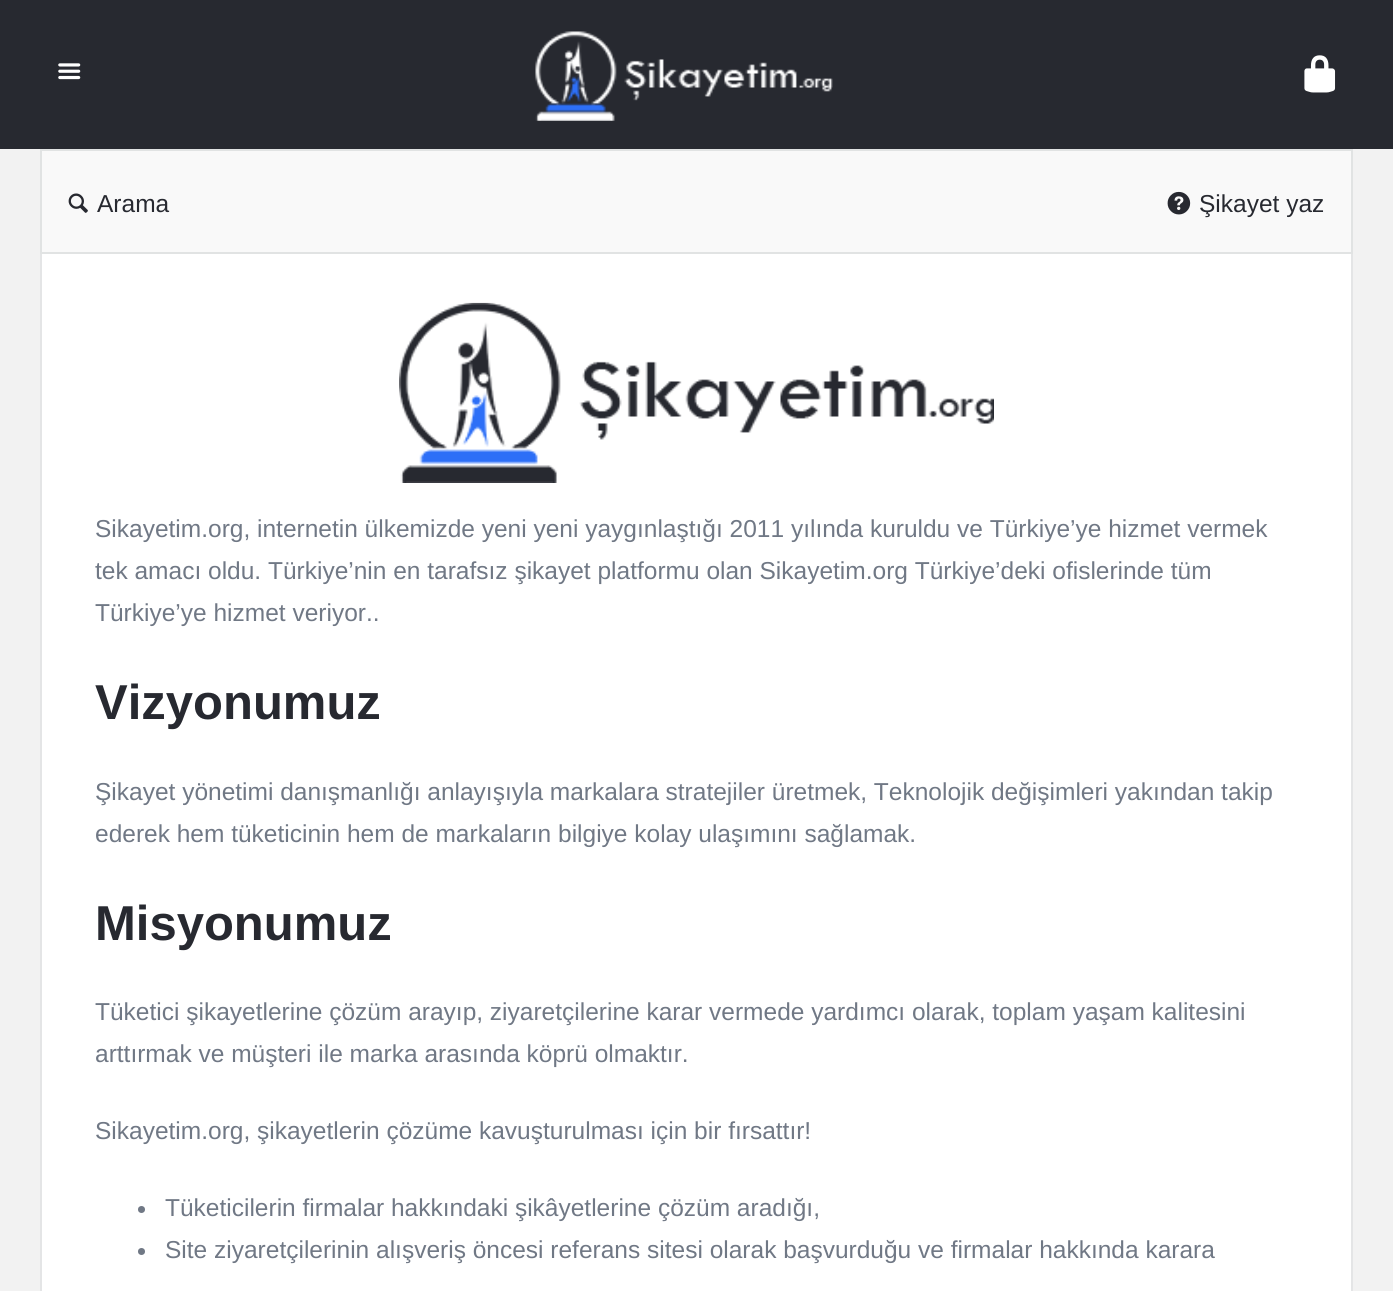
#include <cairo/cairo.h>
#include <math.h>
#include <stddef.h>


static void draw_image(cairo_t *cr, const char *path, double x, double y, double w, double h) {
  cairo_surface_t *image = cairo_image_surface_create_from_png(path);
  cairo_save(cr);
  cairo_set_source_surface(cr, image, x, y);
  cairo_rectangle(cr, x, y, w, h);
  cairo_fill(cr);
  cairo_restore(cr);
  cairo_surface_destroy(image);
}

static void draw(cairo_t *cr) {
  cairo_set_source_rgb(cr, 242 / 255.0, 242 / 255.0, 242 / 255.0);
  cairo_paint(cr);
  cairo_set_source_rgb(cr, 39 / 255.0, 41 / 255.0, 48 / 255.0);
  cairo_rectangle(cr, 0, 0, 1393, 149);
  cairo_fill(cr);
  draw_image(cr, "images/1.png", 58, 63, 23, 17);
  draw_image(cr, "images/2.png", 535, 31, 298, 90);
  draw_image(cr, "images/3.png", 1304, 55, 32, 38);
  cairo_set_source_rgb(cr, 249 / 255.0, 249 / 255.0, 249 / 255.0);
  cairo_rectangle(cr, 41, 150, 1311, 103);
  cairo_fill_preserve(cr);
  cairo_set_source_rgb(cr, 225 / 255.0, 227 / 255.0, 227 / 255.0);
  cairo_stroke(cr);
  draw_image(cr, "images/4.png", 68, 193, 20, 20);
  draw_image(cr, "images/5.png", 1167, 191, 24, 24);
  cairo_set_source_rgb(cr, 1, 1, 1);
  cairo_rectangle(cr, 42, 254, 1309, 1037);
  cairo_fill(cr);
  cairo_set_source_rgb(cr, 228 / 255.0, 229 / 255.0, 230 / 255.0);
  cairo_rectangle(cr, 1351, 254, 2, 1037);
  cairo_fill(cr);
  cairo_rectangle(cr, 40, 254, 2, 1037);
  cairo_fill(cr);
  draw_image(cr, "images/6.png", 399, 302, 595, 181);
  cairo_set_source_rgb(cr, 112 / 255.0, 120 / 255.0, 133 / 255.0);
  cairo_arc(cr, 141.5, 1209.5, 3.5, 0, 2 * M_PI);
  cairo_fill(cr);
  cairo_arc(cr, 141.5, 1251.5, 3.5, 0, 2 * M_PI);
  cairo_fill(cr);
  cairo_select_font_face(cr, "Liberation Sans", CAIRO_FONT_SLANT_NORMAL, CAIRO_FONT_WEIGHT_NORMAL);
  cairo_set_font_size(cr, 24.5);
  cairo_set_source_rgb(cr, 39 / 255.0, 41 / 255.0, 48 / 255.0);
  cairo_move_to(cr, 97, 212);
  cairo_show_text(cr, "Arama");
  cairo_move_to(cr, 1199, 212);
  cairo_show_text(cr, "Şikayet yaz");
  cairo_set_source_rgb(cr, 112 / 255.0, 120 / 255.0, 133 / 255.0);
  cairo_move_to(cr, 95, 537);
  cairo_show_text(cr, "Sikayetim.org, internetin ülkemizde yeni yeni yaygınlaştığı 2011 yılında kuruldu ve Türkiye’ye hizmet vermek");
  cairo_move_to(cr, 95, 579);
  cairo_show_text(cr, "tek amacı oldu. Türkiye’nin en tarafsız şikayet platformu olan Sikayetim.org Türkiye’deki ofislerinde tüm");
  cairo_move_to(cr, 95, 621);
  cairo_show_text(cr, "Türkiye’ye hizmet veriyor..");
  cairo_select_font_face(cr, "Liberation Sans", CAIRO_FONT_SLANT_NORMAL, CAIRO_FONT_WEIGHT_BOLD);
  cairo_set_font_size(cr, 49);
  cairo_set_source_rgb(cr, 39 / 255.0, 41 / 255.0, 48 / 255.0);
  cairo_move_to(cr, 95, 719);
  cairo_show_text(cr, "Vizyonumuz");
  cairo_select_font_face(cr, "Liberation Sans", CAIRO_FONT_SLANT_NORMAL, CAIRO_FONT_WEIGHT_NORMAL);
  cairo_set_font_size(cr, 24.5);
  cairo_set_source_rgb(cr, 112 / 255.0, 120 / 255.0, 133 / 255.0);
  cairo_move_to(cr, 95, 800);
  cairo_show_text(cr, "Şikayet yönetimi danışmanlığı anlayışıyla markalara stratejiler üretmek, Teknolojik değişimleri yakından takip");
  cairo_move_to(cr, 95, 842);
  cairo_show_text(cr, "ederek hem tüketicinin hem de markaların bilgiye kolay ulaşımını sağlamak.");
  cairo_select_font_face(cr, "Liberation Sans", CAIRO_FONT_SLANT_NORMAL, CAIRO_FONT_WEIGHT_BOLD);
  cairo_set_font_size(cr, 49);
  cairo_set_source_rgb(cr, 39 / 255.0, 41 / 255.0, 48 / 255.0);
  cairo_move_to(cr, 95, 940);
  cairo_show_text(cr, "Misyonumuz");
  cairo_select_font_face(cr, "Liberation Sans", CAIRO_FONT_SLANT_NORMAL, CAIRO_FONT_WEIGHT_NORMAL);
  cairo_set_font_size(cr, 24.5);
  cairo_set_source_rgb(cr, 112 / 255.0, 120 / 255.0, 133 / 255.0);
  cairo_move_to(cr, 95, 1020);
  cairo_show_text(cr, "Tüketici şikayetlerine çözüm arayıp, ziyaretçilerine karar vermede yardımcı olarak, toplam yaşam kalitesini");
  cairo_move_to(cr, 95, 1062);
  cairo_show_text(cr, "arttırmak ve müşteri ile marka arasında köprü olmaktır.");
  cairo_move_to(cr, 95, 1139);
  cairo_show_text(cr, "Sikayetim.org, şikayetlerin çözüme kavuşturulması için bir fırsattır!");
  cairo_move_to(cr, 165, 1216);
  cairo_show_text(cr, "Tüketicilerin firmalar hakkındaki şikâyetlerine çözüm aradığı,");
  cairo_move_to(cr, 165, 1258);
  cairo_show_text(cr, "Site ziyaretçilerinin alışveriş öncesi referans sitesi olarak başvurduğu ve firmalar hakkında karara");
}

int main(void) {
  cairo_surface_t *surface = cairo_image_surface_create(CAIRO_FORMAT_RGB24, 1393, 1291);
  cairo_t *cr = cairo_create(surface);
  cairo_font_options_t *options = cairo_font_options_create();
  cairo_font_options_set_hint_metrics(options, CAIRO_HINT_METRICS_OFF);
  cairo_font_options_set_hint_style(options, CAIRO_HINT_STYLE_NONE);
  cairo_set_font_options(cr, options);
  cairo_set_miter_limit(cr, 4);
  draw(cr);
  cairo_surface_write_to_png(surface, "out.png");
  cairo_font_options_destroy(options);
  cairo_destroy(cr);
  cairo_surface_destroy(surface);
  return 0;
}
